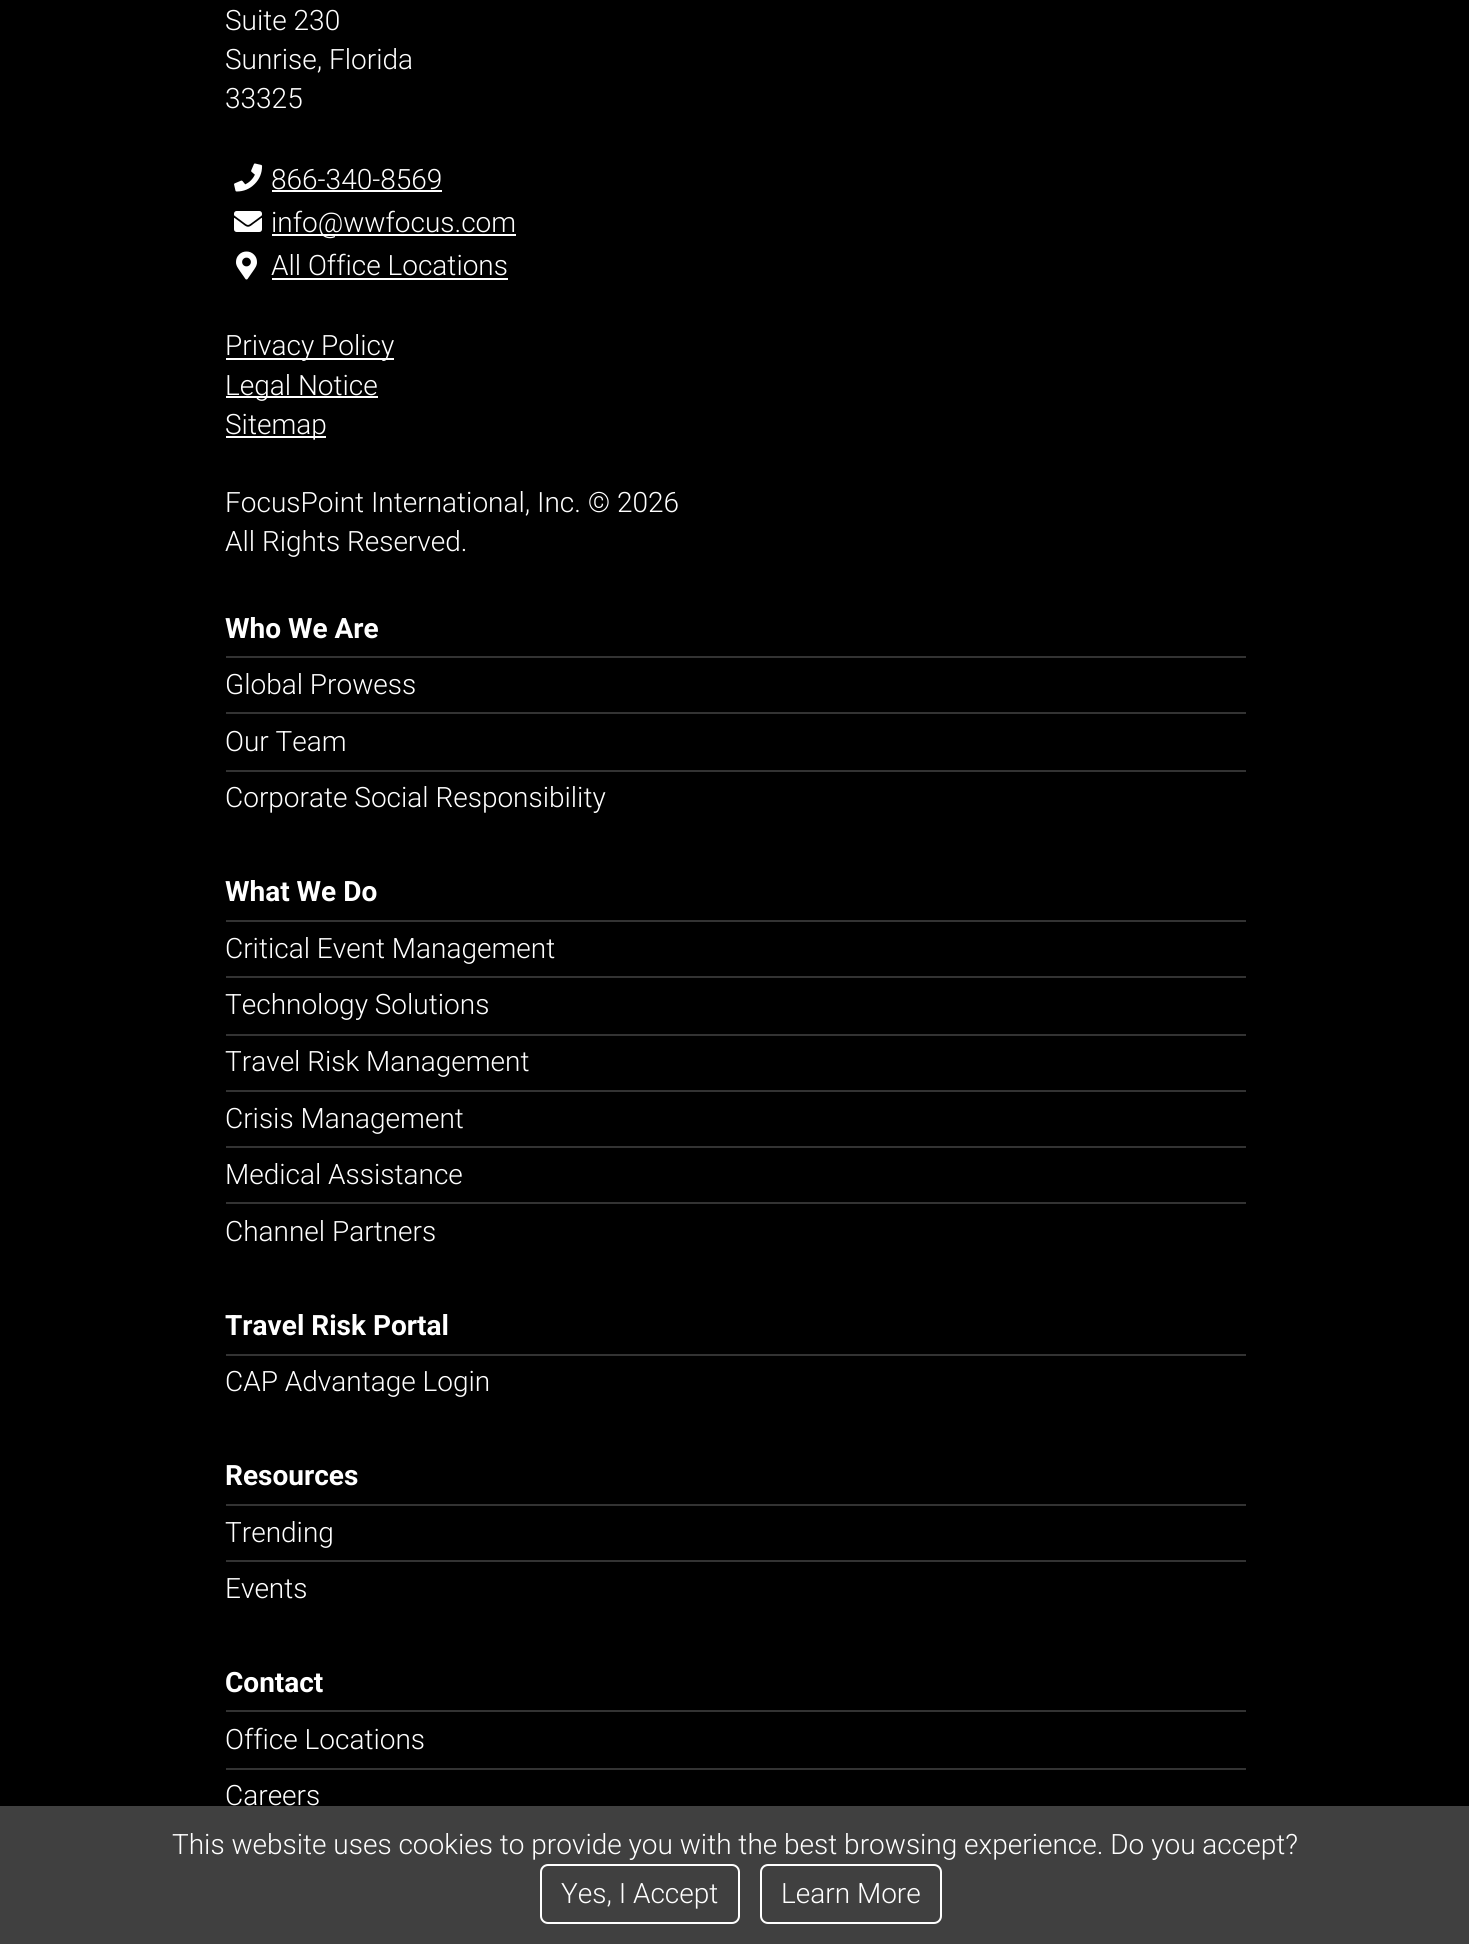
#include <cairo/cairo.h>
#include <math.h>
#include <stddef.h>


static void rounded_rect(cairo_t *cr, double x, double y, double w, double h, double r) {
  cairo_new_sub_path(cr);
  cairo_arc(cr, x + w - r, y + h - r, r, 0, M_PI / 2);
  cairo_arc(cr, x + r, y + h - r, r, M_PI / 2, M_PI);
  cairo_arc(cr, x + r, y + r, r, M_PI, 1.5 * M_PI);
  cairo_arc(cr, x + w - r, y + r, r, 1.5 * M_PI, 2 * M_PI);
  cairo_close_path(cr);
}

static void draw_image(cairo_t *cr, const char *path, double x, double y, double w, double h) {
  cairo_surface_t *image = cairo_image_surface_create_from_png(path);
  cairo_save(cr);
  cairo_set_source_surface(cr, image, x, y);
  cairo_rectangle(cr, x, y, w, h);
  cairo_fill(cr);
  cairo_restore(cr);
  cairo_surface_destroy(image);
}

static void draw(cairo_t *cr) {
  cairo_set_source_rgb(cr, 0, 0, 0);
  cairo_paint(cr);
  draw_image(cr, "images/1.png", 234, 163, 29, 29);
  cairo_set_source_rgb(cr, 1, 1, 1);
  cairo_rectangle(cr, 272, 190, 170, 2);
  cairo_fill(cr);
  draw_image(cr, "images/2.png", 234, 211, 28, 21);
  cairo_rectangle(cr, 272, 234, 244, 2);
  cairo_fill(cr);
  draw_image(cr, "images/3.png", 236, 251, 21, 29);
  cairo_rectangle(cr, 272, 278, 236, 2);
  cairo_fill(cr);
  cairo_rectangle(cr, 226, 358, 168, 2);
  cairo_fill(cr);
  cairo_rectangle(cr, 226, 396, 152, 2);
  cairo_fill(cr);
  cairo_rectangle(cr, 226, 436, 100, 2);
  cairo_fill(cr);
  cairo_set_source_rgb(cr, 51 / 255.0, 51 / 255.0, 51 / 255.0);
  cairo_rectangle(cr, 226, 656, 1020, 2);
  cairo_fill(cr);
  cairo_rectangle(cr, 226, 712, 1020, 2);
  cairo_fill(cr);
  cairo_rectangle(cr, 226, 770, 1020, 2);
  cairo_fill(cr);
  cairo_rectangle(cr, 226, 920, 1020, 2);
  cairo_fill(cr);
  cairo_rectangle(cr, 226, 976, 1020, 2);
  cairo_fill(cr);
  cairo_rectangle(cr, 226, 1034, 1020, 2);
  cairo_fill(cr);
  cairo_rectangle(cr, 226, 1090, 1020, 2);
  cairo_fill(cr);
  cairo_rectangle(cr, 226, 1146, 1020, 2);
  cairo_fill(cr);
  cairo_rectangle(cr, 226, 1202, 1020, 2);
  cairo_fill(cr);
  cairo_rectangle(cr, 226, 1354, 1020, 2);
  cairo_fill(cr);
  cairo_rectangle(cr, 226, 1504, 1020, 2);
  cairo_fill(cr);
  cairo_rectangle(cr, 226, 1560, 1020, 2);
  cairo_fill(cr);
  cairo_rectangle(cr, 226, 1710, 1020, 2);
  cairo_fill(cr);
  cairo_rectangle(cr, 226, 1768, 1020, 2);
  cairo_fill(cr);
  cairo_set_source_rgb(cr, 64 / 255.0, 64 / 255.0, 64 / 255.0);
  cairo_rectangle(cr, 0, 1806, 1469, 138);
  cairo_fill(cr);
  rounded_rect(cr, 541, 1865, 198, 58, 7);
  cairo_set_source_rgb(cr, 1, 1, 1);
  cairo_stroke(cr);
  rounded_rect(cr, 761, 1865, 180, 58, 7);
  cairo_stroke(cr);
  cairo_select_font_face(cr, "Roboto Light", CAIRO_FONT_SLANT_NORMAL, CAIRO_FONT_WEIGHT_NORMAL);
  cairo_set_font_size(cr, 28);
  cairo_move_to(cr, 225, 30);
  cairo_show_text(cr, "Suite 230");
  cairo_move_to(cr, 225, 69);
  cairo_show_text(cr, "Sunrise, Florida");
  cairo_move_to(cr, 225, 108);
  cairo_show_text(cr, "33325");
  cairo_move_to(cr, 271, 189);
  cairo_show_text(cr, "866-340-8569");
  cairo_move_to(cr, 271, 232);
  cairo_show_text(cr, "info@wwfocus.com");
  cairo_move_to(cr, 271, 275);
  cairo_show_text(cr, "All Office Locations");
  cairo_move_to(cr, 225, 355);
  cairo_show_text(cr, "Privacy Policy");
  cairo_move_to(cr, 225, 395);
  cairo_show_text(cr, "Legal Notice");
  cairo_move_to(cr, 225, 434);
  cairo_show_text(cr, "Sitemap");
  cairo_move_to(cr, 225, 512);
  cairo_show_text(cr, "FocusPoint International, Inc. © 2026");
  cairo_move_to(cr, 225, 551);
  cairo_show_text(cr, "All Rights Reserved.");
  cairo_select_font_face(cr, "Roboto", CAIRO_FONT_SLANT_NORMAL, CAIRO_FONT_WEIGHT_BOLD);
  cairo_move_to(cr, 225, 638);
  cairo_show_text(cr, "Who We Are");
  cairo_select_font_face(cr, "Roboto Light", CAIRO_FONT_SLANT_NORMAL, CAIRO_FONT_WEIGHT_NORMAL);
  cairo_move_to(cr, 225, 694);
  cairo_show_text(cr, "Global Prowess");
  cairo_move_to(cr, 225, 751);
  cairo_show_text(cr, "Our Team");
  cairo_move_to(cr, 225, 807);
  cairo_show_text(cr, "Corporate Social Responsibility");
  cairo_select_font_face(cr, "Roboto", CAIRO_FONT_SLANT_NORMAL, CAIRO_FONT_WEIGHT_BOLD);
  cairo_move_to(cr, 225, 901);
  cairo_show_text(cr, "What We Do");
  cairo_select_font_face(cr, "Roboto Light", CAIRO_FONT_SLANT_NORMAL, CAIRO_FONT_WEIGHT_NORMAL);
  cairo_move_to(cr, 225, 958);
  cairo_show_text(cr, "Critical Event Management");
  cairo_move_to(cr, 225, 1014);
  cairo_show_text(cr, "Technology Solutions");
  cairo_move_to(cr, 225, 1071);
  cairo_show_text(cr, "Travel Risk Management");
  cairo_move_to(cr, 225, 1128);
  cairo_show_text(cr, "Crisis Management");
  cairo_move_to(cr, 225, 1184);
  cairo_show_text(cr, "Medical Assistance");
  cairo_move_to(cr, 225, 1241);
  cairo_show_text(cr, "Channel Partners");
  cairo_select_font_face(cr, "Roboto", CAIRO_FONT_SLANT_NORMAL, CAIRO_FONT_WEIGHT_BOLD);
  cairo_move_to(cr, 225, 1335);
  cairo_show_text(cr, "Travel Risk Portal");
  cairo_select_font_face(cr, "Roboto Light", CAIRO_FONT_SLANT_NORMAL, CAIRO_FONT_WEIGHT_NORMAL);
  cairo_move_to(cr, 225, 1391);
  cairo_show_text(cr, "CAP Advantage Login");
  cairo_select_font_face(cr, "Roboto", CAIRO_FONT_SLANT_NORMAL, CAIRO_FONT_WEIGHT_BOLD);
  cairo_move_to(cr, 225, 1485);
  cairo_show_text(cr, "Resources");
  cairo_select_font_face(cr, "Roboto Light", CAIRO_FONT_SLANT_NORMAL, CAIRO_FONT_WEIGHT_NORMAL);
  cairo_move_to(cr, 225, 1542);
  cairo_show_text(cr, "Trending");
  cairo_move_to(cr, 225, 1598);
  cairo_show_text(cr, "Events");
  cairo_select_font_face(cr, "Roboto", CAIRO_FONT_SLANT_NORMAL, CAIRO_FONT_WEIGHT_BOLD);
  cairo_move_to(cr, 225, 1692);
  cairo_show_text(cr, "Contact");
  cairo_select_font_face(cr, "Roboto Light", CAIRO_FONT_SLANT_NORMAL, CAIRO_FONT_WEIGHT_NORMAL);
  cairo_move_to(cr, 225, 1749);
  cairo_show_text(cr, "Office Locations");
  cairo_move_to(cr, 225, 1805);
  cairo_show_text(cr, "Careers");
  cairo_move_to(cr, 172, 1854);
  cairo_show_text(cr, "This website uses cookies to provide you with the best browsing experience. Do you accept?");
  cairo_move_to(cr, 561, 1903);
  cairo_show_text(cr, "Yes, I Accept");
  cairo_move_to(cr, 781, 1903);
  cairo_show_text(cr, "Learn More");
}

int main(void) {
  cairo_surface_t *surface = cairo_image_surface_create(CAIRO_FORMAT_RGB24, 1469, 1944);
  cairo_t *cr = cairo_create(surface);
  cairo_font_options_t *options = cairo_font_options_create();
  cairo_font_options_set_hint_metrics(options, CAIRO_HINT_METRICS_OFF);
  cairo_font_options_set_hint_style(options, CAIRO_HINT_STYLE_NONE);
  cairo_set_font_options(cr, options);
  cairo_set_miter_limit(cr, 4);
  draw(cr);
  cairo_surface_write_to_png(surface, "out.png");
  cairo_font_options_destroy(options);
  cairo_destroy(cr);
  cairo_surface_destroy(surface);
  return 0;
}
